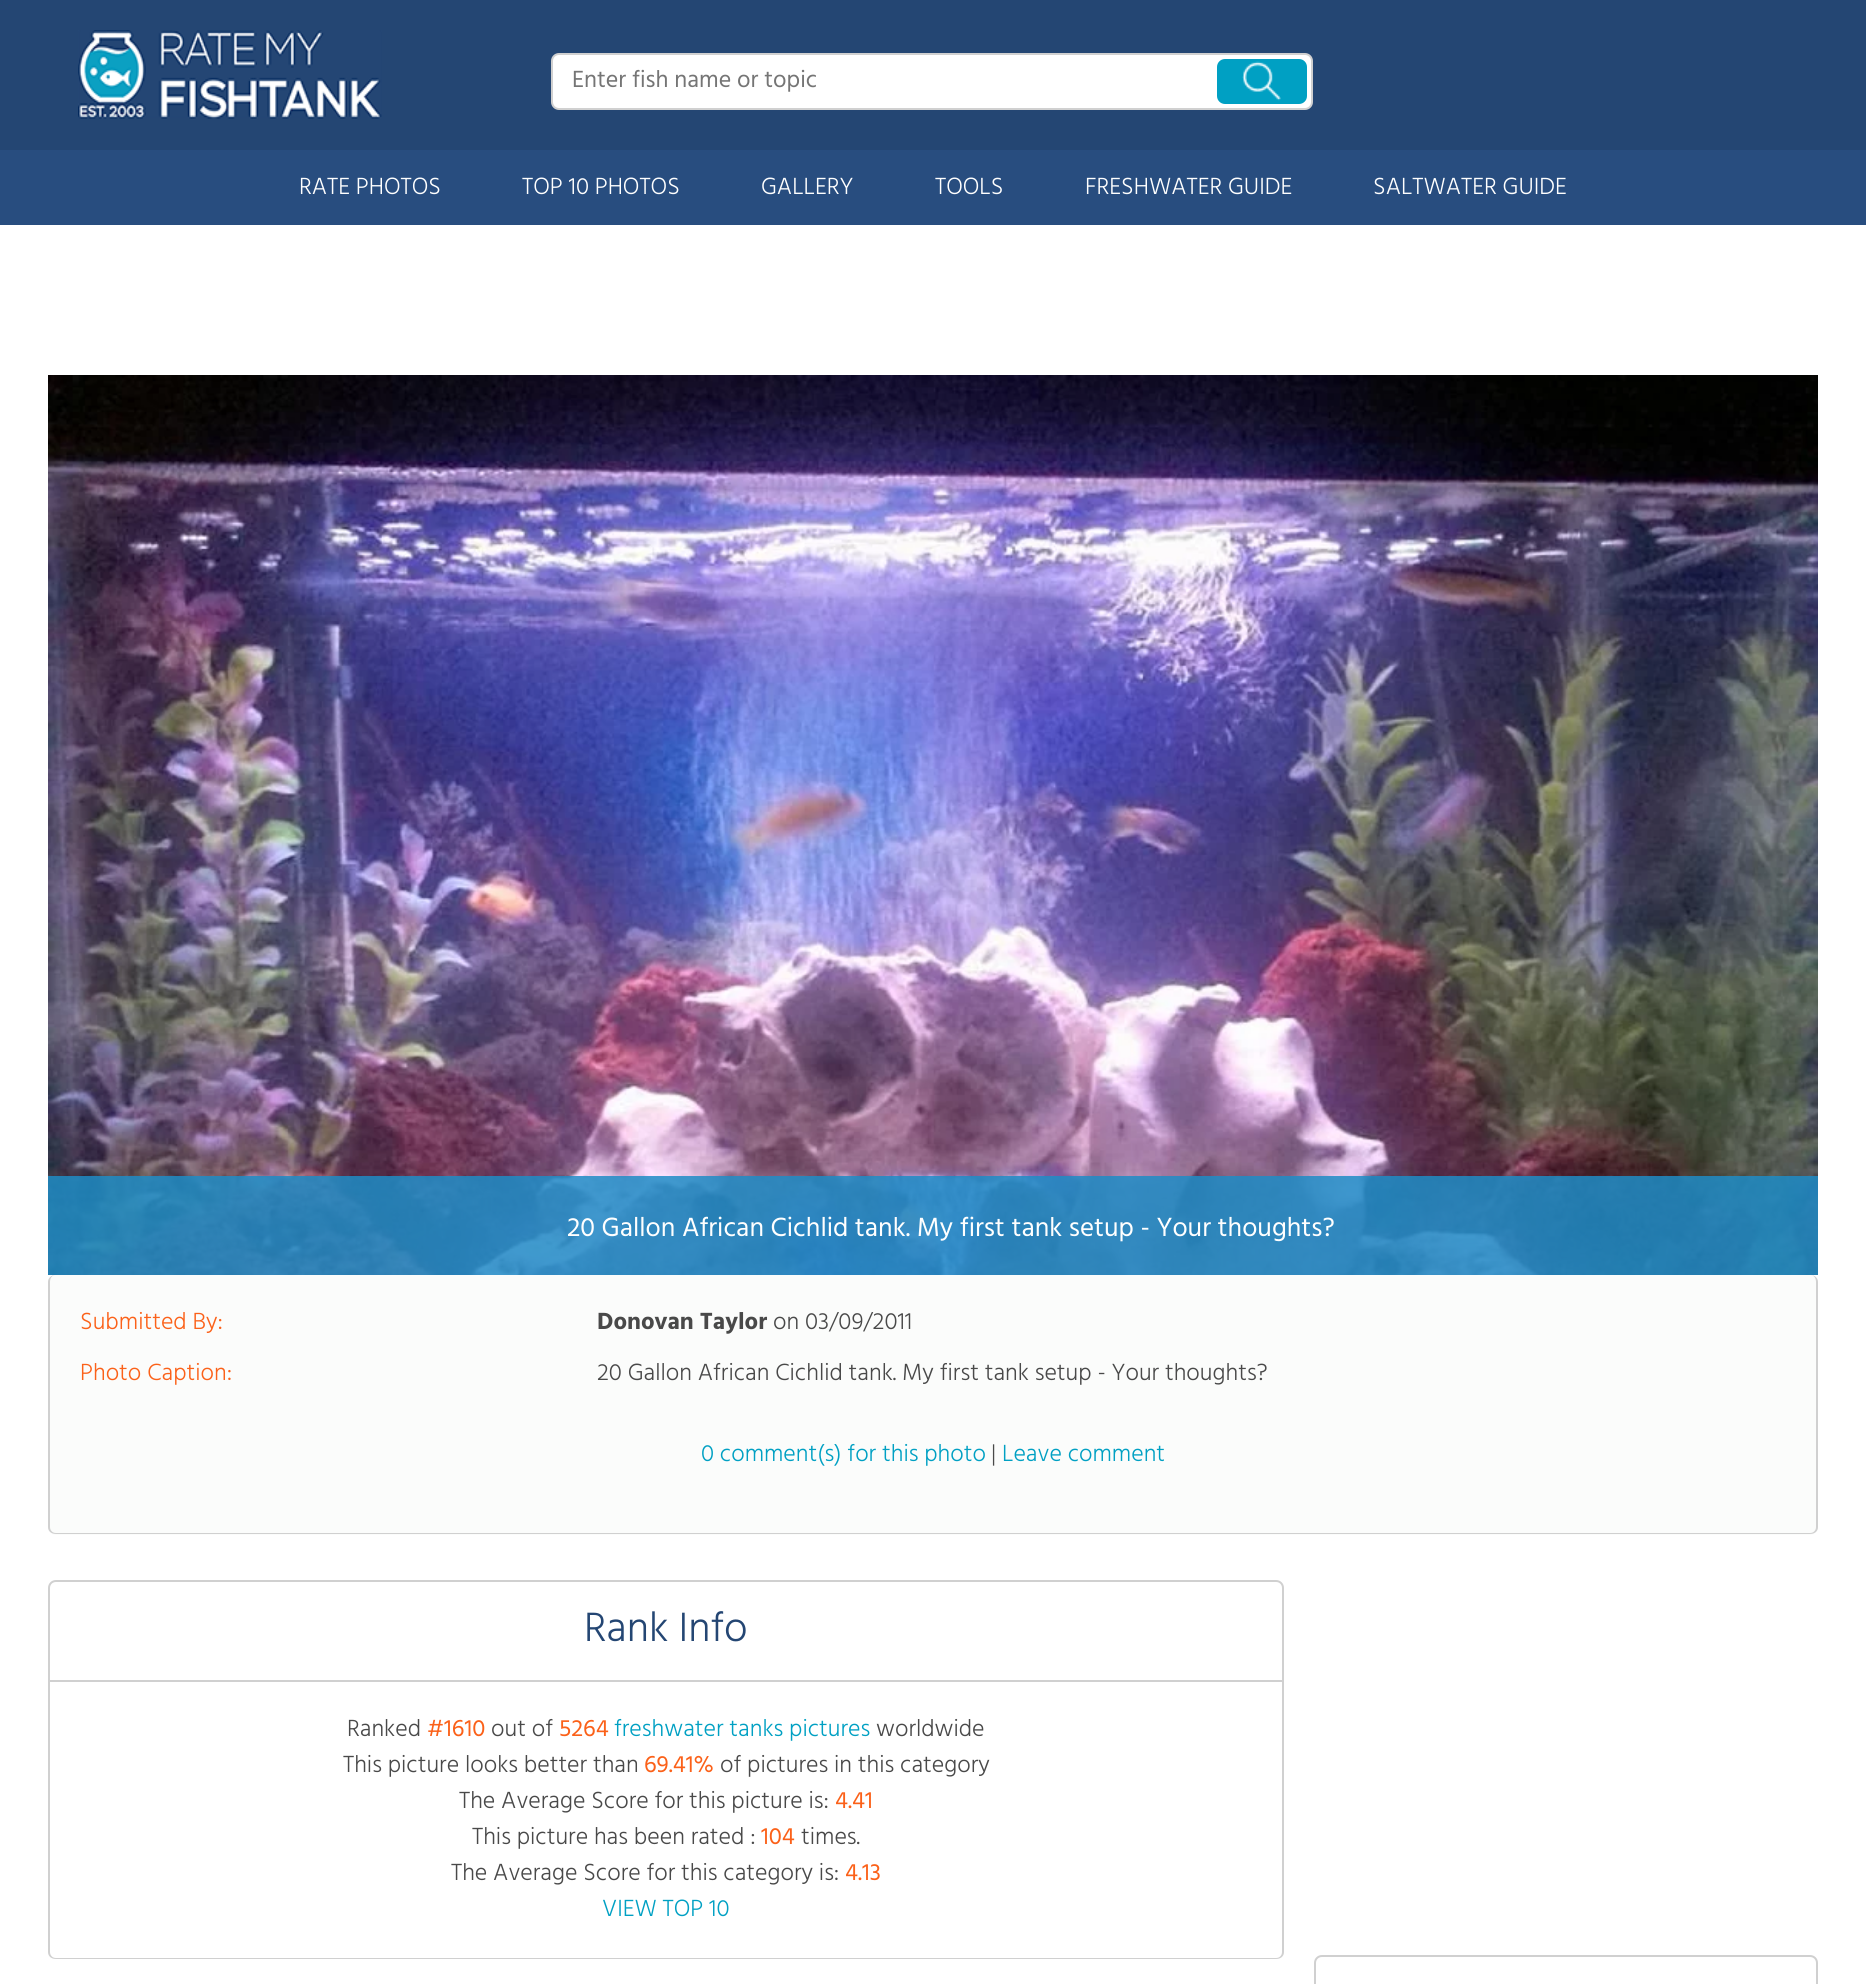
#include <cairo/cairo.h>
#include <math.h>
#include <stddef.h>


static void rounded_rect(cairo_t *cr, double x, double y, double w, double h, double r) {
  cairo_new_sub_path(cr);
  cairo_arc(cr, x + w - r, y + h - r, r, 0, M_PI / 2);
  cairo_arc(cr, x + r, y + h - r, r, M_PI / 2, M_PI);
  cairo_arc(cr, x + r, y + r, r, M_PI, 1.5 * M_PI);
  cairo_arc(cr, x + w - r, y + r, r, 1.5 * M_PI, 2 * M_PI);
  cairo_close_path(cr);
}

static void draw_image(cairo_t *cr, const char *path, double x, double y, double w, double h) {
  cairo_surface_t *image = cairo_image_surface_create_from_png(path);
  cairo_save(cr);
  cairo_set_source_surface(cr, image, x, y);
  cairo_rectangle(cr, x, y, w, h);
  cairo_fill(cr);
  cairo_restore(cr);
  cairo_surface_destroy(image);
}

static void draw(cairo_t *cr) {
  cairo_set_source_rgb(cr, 1, 1, 1);
  cairo_paint(cr);
  cairo_set_source_rgb(cr, 36 / 255.0, 70 / 255.0, 115 / 255.0);
  cairo_rectangle(cr, 0, 0, 1866, 150);
  cairo_fill(cr);
  draw_image(cr, "images/1.png", 78, 30, 304, 89);
  cairo_set_source_rgb(cr, 1, 1, 1);
  rounded_rect(cr, 552, 54, 760, 55, 7);
  cairo_fill_preserve(cr);
  cairo_set_source_rgb(cr, 208 / 255.0, 208 / 255.0, 208 / 255.0);
  cairo_stroke(cr);
  cairo_set_source_rgb(cr, 0, 160 / 255.0, 195 / 255.0);
  rounded_rect(cr, 1217, 59, 90, 45, 8);
  cairo_fill(cr);
  draw_image(cr, "images/2.png", 1242, 61, 39, 40);
  cairo_set_source_rgb(cr, 40 / 255.0, 77 / 255.0, 127 / 255.0);
  cairo_rectangle(cr, 0, 150, 1866, 75);
  cairo_fill(cr);
  draw_image(cr, "images/3.png", 48, 375, 1770, 900);
  cairo_set_source_rgba(cr, 31 / 255.0, 140 / 255.0, 197 / 255.0, 0.85);
  cairo_rectangle(cr, 48, 1176, 1770, 99);
  cairo_fill(cr);
  cairo_set_source_rgb(cr, 251 / 255.0, 252 / 255.0, 251 / 255.0);
  rounded_rect(cr, 48, 1275, 1770, 260, 8);
  cairo_fill(cr);
  cairo_set_source_rgb(cr, 208 / 255.0, 208 / 255.0, 208 / 255.0);
  cairo_set_fill_rule(cr, CAIRO_FILL_RULE_EVEN_ODD);
  cairo_new_path(cr);
  cairo_move_to(cr, 56, 1275);
  cairo_line_to(cr, 1810, 1275);
  cairo_curve_to(cr, 1815, 1275, 1818, 1278, 1818, 1282);
  cairo_line_to(cr, 1818, 1527);
  cairo_curve_to(cr, 1818, 1531, 1815, 1534, 1810, 1534);
  cairo_line_to(cr, 56, 1534);
  cairo_curve_to(cr, 51, 1534, 48, 1531, 48, 1527);
  cairo_line_to(cr, 48, 1282);
  cairo_curve_to(cr, 48, 1278, 51, 1275, 56, 1275);
  cairo_close_path(cr);
  cairo_move_to(cr, 56, 1275);
  cairo_line_to(cr, 1810, 1275);
  cairo_curve_to(cr, 1814, 1275, 1816, 1278, 1816, 1282);
  cairo_line_to(cr, 1816, 1527);
  cairo_curve_to(cr, 1816, 1530, 1814, 1533, 1810, 1533);
  cairo_line_to(cr, 56, 1533);
  cairo_curve_to(cr, 52, 1533, 50, 1530, 50, 1527);
  cairo_line_to(cr, 50, 1282);
  cairo_curve_to(cr, 50, 1278, 52, 1275, 56, 1275);
  cairo_close_path(cr);
  cairo_fill(cr);
  cairo_new_path(cr);
  cairo_move_to(cr, 56, 1581);
  cairo_line_to(cr, 1276, 1581);
  cairo_curve_to(cr, 1280, 1581, 1283, 1584, 1283, 1588);
  cairo_line_to(cr, 1283, 1681);
  cairo_line_to(cr, 49, 1681);
  cairo_line_to(cr, 49, 1588);
  cairo_curve_to(cr, 49, 1584, 52, 1581, 56, 1581);
  cairo_close_path(cr);
  cairo_stroke(cr);
  cairo_new_path(cr);
  cairo_move_to(cr, 48, 1682);
  cairo_line_to(cr, 1284, 1682);
  cairo_line_to(cr, 1284, 1952);
  cairo_curve_to(cr, 1284, 1956, 1281, 1959, 1276, 1959);
  cairo_line_to(cr, 56, 1959);
  cairo_curve_to(cr, 51, 1959, 48, 1956, 48, 1952);
  cairo_close_path(cr);
  cairo_move_to(cr, 50, 1682);
  cairo_line_to(cr, 1282, 1682);
  cairo_line_to(cr, 1282, 1952);
  cairo_curve_to(cr, 1282, 1955, 1280, 1958, 1276, 1958);
  cairo_line_to(cr, 56, 1958);
  cairo_curve_to(cr, 52, 1958, 50, 1955, 50, 1952);
  cairo_close_path(cr);
  cairo_fill(cr);
  cairo_new_path(cr);
  cairo_move_to(cr, 1322, 1956);
  cairo_line_to(cr, 1810, 1956);
  cairo_curve_to(cr, 1814, 1956, 1817, 1959, 1817, 1963);
  cairo_line_to(cr, 1817, 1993);
  cairo_line_to(cr, 1315, 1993);
  cairo_line_to(cr, 1315, 1963);
  cairo_curve_to(cr, 1315, 1959, 1318, 1956, 1322, 1956);
  cairo_close_path(cr);
  cairo_stroke(cr);
  cairo_select_font_face(cr, "Hind", CAIRO_FONT_SLANT_NORMAL, CAIRO_FONT_WEIGHT_NORMAL);
  cairo_set_font_size(cr, 24);
  cairo_set_source_rgb(cr, 117 / 255.0, 117 / 255.0, 117 / 255.0);
  cairo_move_to(cr, 572, 87);
  cairo_show_text(cr, "Enter fish name or topic");
  cairo_select_font_face(cr, "Hind Light", CAIRO_FONT_SLANT_NORMAL, CAIRO_FONT_WEIGHT_NORMAL);
  cairo_set_source_rgb(cr, 1, 1, 1);
  cairo_move_to(cr, 299, 194);
  cairo_show_text(cr, "RATE PHOTOS");
  cairo_move_to(cr, 522, 194);
  cairo_show_text(cr, "TOP 10 PHOTOS");
  cairo_move_to(cr, 761, 194);
  cairo_show_text(cr, "GALLERY");
  cairo_move_to(cr, 935, 194);
  cairo_show_text(cr, "TOOLS");
  cairo_move_to(cr, 1085, 194);
  cairo_show_text(cr, "FRESHWATER GUIDE");
  cairo_move_to(cr, 1373, 194);
  cairo_show_text(cr, "SALTWATER GUIDE");
  cairo_select_font_face(cr, "Hind", CAIRO_FONT_SLANT_NORMAL, CAIRO_FONT_WEIGHT_NORMAL);
  cairo_set_font_size(cr, 27);
  cairo_move_to(cr, 567, 1236);
  cairo_show_text(cr, "20 Gallon African Cichlid tank. My first tank setup - Your thoughts?");
  cairo_select_font_face(cr, "Hind Light", CAIRO_FONT_SLANT_NORMAL, CAIRO_FONT_WEIGHT_NORMAL);
  cairo_set_font_size(cr, 24);
  cairo_set_source_rgb(cr, 251 / 255.0, 97 / 255.0, 25 / 255.0);
  cairo_move_to(cr, 80, 1329);
  cairo_show_text(cr, "Submitted By:");
  cairo_select_font_face(cr, "Hind", CAIRO_FONT_SLANT_NORMAL, CAIRO_FONT_WEIGHT_BOLD);
  cairo_set_source_rgb(cr, 73 / 255.0, 73 / 255.0, 73 / 255.0);
  cairo_move_to(cr, 597, 1329);
  cairo_show_text(cr, "Donovan Taylor");
  cairo_select_font_face(cr, "Hind Light", CAIRO_FONT_SLANT_NORMAL, CAIRO_FONT_WEIGHT_NORMAL);
  cairo_move_to(cr, 773, 1329);
  cairo_show_text(cr, "on 03/09/2011");
  cairo_set_source_rgb(cr, 251 / 255.0, 97 / 255.0, 25 / 255.0);
  cairo_move_to(cr, 80, 1380);
  cairo_show_text(cr, "Photo Caption:");
  cairo_set_source_rgb(cr, 73 / 255.0, 73 / 255.0, 73 / 255.0);
  cairo_move_to(cr, 597, 1380);
  cairo_show_text(cr, "20 Gallon African Cichlid tank. My first tank setup - Your thoughts?");
  cairo_set_source_rgb(cr, 0, 160 / 255.0, 195 / 255.0);
  cairo_move_to(cr, 701, 1461);
  cairo_show_text(cr, "0 comment(s) for this photo");
  cairo_set_source_rgb(cr, 73 / 255.0, 73 / 255.0, 73 / 255.0);
  cairo_move_to(cr, 991, 1461);
  cairo_show_text(cr, "|");
  cairo_set_source_rgb(cr, 0, 160 / 255.0, 195 / 255.0);
  cairo_move_to(cr, 1002, 1461);
  cairo_show_text(cr, "Leave comment");
  cairo_set_font_size(cr, 42);
  cairo_set_source_rgb(cr, 36 / 255.0, 70 / 255.0, 115 / 255.0);
  cairo_move_to(cr, 584, 1641);
  cairo_show_text(cr, "Rank Info");
  cairo_set_font_size(cr, 24);
  cairo_set_source_rgb(cr, 73 / 255.0, 73 / 255.0, 73 / 255.0);
  cairo_move_to(cr, 347, 1736);
  cairo_show_text(cr, "Ranked");
  cairo_select_font_face(cr, "Hind", CAIRO_FONT_SLANT_NORMAL, CAIRO_FONT_WEIGHT_NORMAL);
  cairo_set_source_rgb(cr, 251 / 255.0, 97 / 255.0, 25 / 255.0);
  cairo_move_to(cr, 427, 1736);
  cairo_show_text(cr, "#1610");
  cairo_select_font_face(cr, "Hind Light", CAIRO_FONT_SLANT_NORMAL, CAIRO_FONT_WEIGHT_NORMAL);
  cairo_set_source_rgb(cr, 73 / 255.0, 73 / 255.0, 73 / 255.0);
  cairo_move_to(cr, 491, 1736);
  cairo_show_text(cr, "out of");
  cairo_select_font_face(cr, "Hind", CAIRO_FONT_SLANT_NORMAL, CAIRO_FONT_WEIGHT_NORMAL);
  cairo_set_source_rgb(cr, 251 / 255.0, 97 / 255.0, 25 / 255.0);
  cairo_move_to(cr, 559, 1736);
  cairo_show_text(cr, "5264");
  cairo_select_font_face(cr, "Hind Light", CAIRO_FONT_SLANT_NORMAL, CAIRO_FONT_WEIGHT_NORMAL);
  cairo_set_source_rgb(cr, 0, 160 / 255.0, 195 / 255.0);
  cairo_move_to(cr, 614, 1736);
  cairo_show_text(cr, "freshwater tanks pictures");
  cairo_set_source_rgb(cr, 73 / 255.0, 73 / 255.0, 73 / 255.0);
  cairo_move_to(cr, 876, 1736);
  cairo_show_text(cr, "worldwide");
  cairo_move_to(cr, 343, 1772);
  cairo_show_text(cr, "This picture looks better than");
  cairo_select_font_face(cr, "Hind", CAIRO_FONT_SLANT_NORMAL, CAIRO_FONT_WEIGHT_NORMAL);
  cairo_set_source_rgb(cr, 251 / 255.0, 97 / 255.0, 25 / 255.0);
  cairo_move_to(cr, 644, 1772);
  cairo_show_text(cr, "69.41%");
  cairo_select_font_face(cr, "Hind Light", CAIRO_FONT_SLANT_NORMAL, CAIRO_FONT_WEIGHT_NORMAL);
  cairo_set_source_rgb(cr, 73 / 255.0, 73 / 255.0, 73 / 255.0);
  cairo_move_to(cr, 720, 1772);
  cairo_show_text(cr, "of pictures in this category");
  cairo_move_to(cr, 459, 1808);
  cairo_show_text(cr, "The Average Score for this picture is:");
  cairo_select_font_face(cr, "Hind", CAIRO_FONT_SLANT_NORMAL, CAIRO_FONT_WEIGHT_NORMAL);
  cairo_set_source_rgb(cr, 251 / 255.0, 97 / 255.0, 25 / 255.0);
  cairo_move_to(cr, 835, 1808);
  cairo_show_text(cr, "4.41");
  cairo_select_font_face(cr, "Hind Light", CAIRO_FONT_SLANT_NORMAL, CAIRO_FONT_WEIGHT_NORMAL);
  cairo_set_source_rgb(cr, 73 / 255.0, 73 / 255.0, 73 / 255.0);
  cairo_move_to(cr, 472, 1844);
  cairo_show_text(cr, "This picture has been rated :");
  cairo_select_font_face(cr, "Hind", CAIRO_FONT_SLANT_NORMAL, CAIRO_FONT_WEIGHT_NORMAL);
  cairo_set_source_rgb(cr, 251 / 255.0, 97 / 255.0, 25 / 255.0);
  cairo_move_to(cr, 761, 1844);
  cairo_show_text(cr, "104");
  cairo_select_font_face(cr, "Hind Light", CAIRO_FONT_SLANT_NORMAL, CAIRO_FONT_WEIGHT_NORMAL);
  cairo_set_source_rgb(cr, 73 / 255.0, 73 / 255.0, 73 / 255.0);
  cairo_move_to(cr, 801, 1844);
  cairo_show_text(cr, "times.");
  cairo_move_to(cr, 451, 1880);
  cairo_show_text(cr, "The Average Score for this category is:");
  cairo_select_font_face(cr, "Hind", CAIRO_FONT_SLANT_NORMAL, CAIRO_FONT_WEIGHT_NORMAL);
  cairo_set_source_rgb(cr, 251 / 255.0, 97 / 255.0, 25 / 255.0);
  cairo_move_to(cr, 845, 1880);
  cairo_show_text(cr, "4.13");
  cairo_select_font_face(cr, "Hind Light", CAIRO_FONT_SLANT_NORMAL, CAIRO_FONT_WEIGHT_NORMAL);
  cairo_set_source_rgb(cr, 0, 160 / 255.0, 195 / 255.0);
  cairo_move_to(cr, 602, 1916);
  cairo_show_text(cr, "VIEW TOP 10");
}

int main(void) {
  cairo_surface_t *surface = cairo_image_surface_create(CAIRO_FORMAT_RGB24, 1866, 1984);
  cairo_t *cr = cairo_create(surface);
  cairo_font_options_t *options = cairo_font_options_create();
  cairo_font_options_set_hint_metrics(options, CAIRO_HINT_METRICS_OFF);
  cairo_font_options_set_hint_style(options, CAIRO_HINT_STYLE_NONE);
  cairo_set_font_options(cr, options);
  cairo_set_miter_limit(cr, 4);
  draw(cr);
  cairo_surface_write_to_png(surface, "out.png");
  cairo_font_options_destroy(options);
  cairo_destroy(cr);
  cairo_surface_destroy(surface);
  return 0;
}
